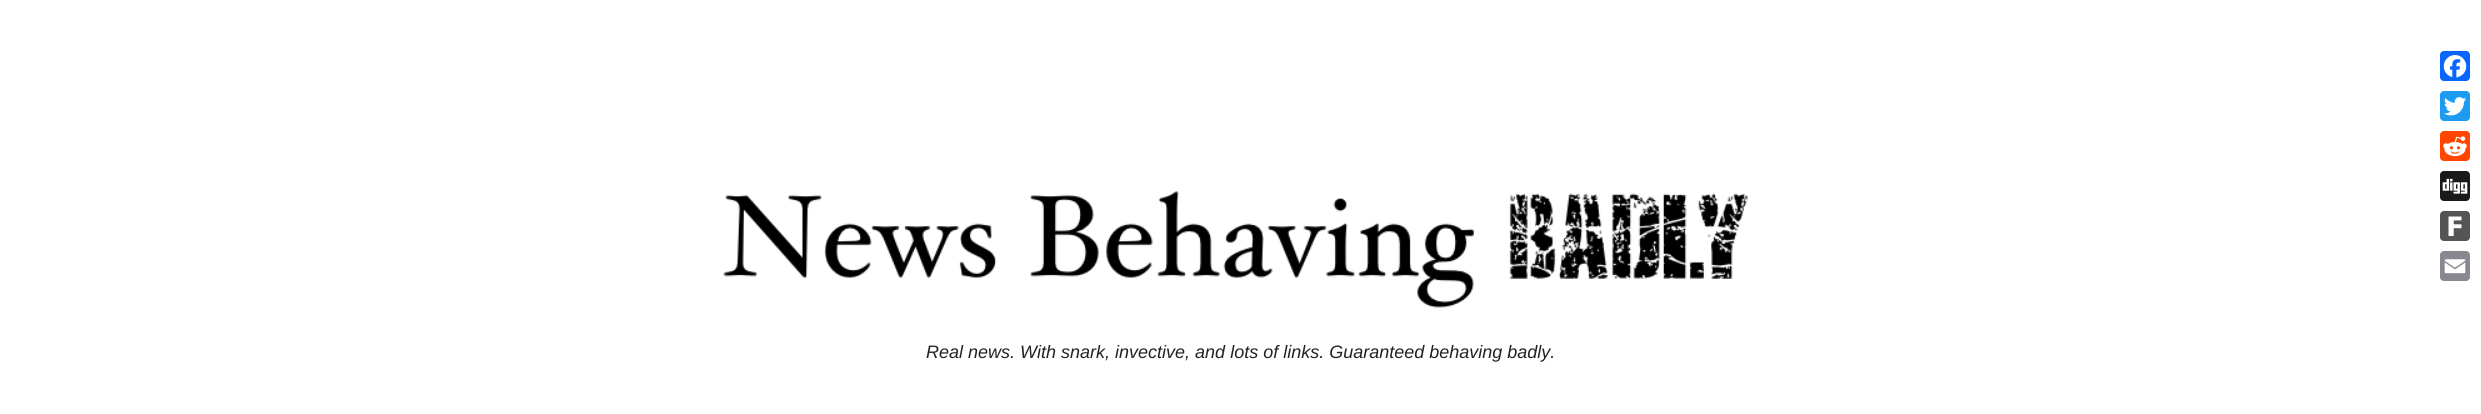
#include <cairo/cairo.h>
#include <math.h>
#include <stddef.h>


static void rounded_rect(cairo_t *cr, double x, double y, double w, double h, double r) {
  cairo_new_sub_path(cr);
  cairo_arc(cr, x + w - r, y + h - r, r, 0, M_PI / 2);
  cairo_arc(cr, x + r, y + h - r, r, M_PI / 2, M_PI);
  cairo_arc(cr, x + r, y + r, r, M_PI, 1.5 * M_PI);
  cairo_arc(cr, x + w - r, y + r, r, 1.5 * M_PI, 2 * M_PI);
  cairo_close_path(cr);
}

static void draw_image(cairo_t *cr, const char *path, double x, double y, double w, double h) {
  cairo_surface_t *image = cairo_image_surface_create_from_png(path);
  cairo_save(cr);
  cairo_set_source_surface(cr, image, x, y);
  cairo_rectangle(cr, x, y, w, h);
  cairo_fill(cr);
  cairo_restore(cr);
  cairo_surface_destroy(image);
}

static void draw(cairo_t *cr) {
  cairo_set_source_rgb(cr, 1, 1, 1);
  cairo_paint(cr);
  cairo_set_source_rgb(cr, 8 / 255.0, 102 / 255.0, 1);
  rounded_rect(cr, 2440, 51, 30, 30, 4);
  cairo_fill(cr);
  draw_image(cr, "images/1.png", 2443, 55, 24, 23);
  cairo_set_source_rgb(cr, 29 / 255.0, 155 / 255.0, 240 / 255.0);
  rounded_rect(cr, 2440, 91, 30, 30, 4);
  cairo_fill(cr);
  draw_image(cr, "images/2.png", 2444, 97, 23, 19);
  cairo_set_source_rgb(cr, 1, 69 / 255.0, 0);
  rounded_rect(cr, 2440, 131, 30, 30, 4);
  cairo_fill(cr);
  draw_image(cr, "images/3.png", 2443, 136, 24, 21);
  cairo_set_source_rgb(cr, 26 / 255.0, 26 / 255.0, 26 / 255.0);
  rounded_rect(cr, 2440, 171, 30, 30, 4);
  cairo_fill(cr);
  draw_image(cr, "images/4.png", 2442, 178, 26, 16);
  cairo_set_source_rgb(cr, 85 / 255.0, 85 / 255.0, 85 / 255.0);
  rounded_rect(cr, 2440, 211, 30, 30, 4);
  cairo_fill(cr);
  draw_image(cr, "images/5.png", 2448, 216, 14, 20);
  cairo_set_source_rgb(cr, 136 / 255.0, 137 / 255.0, 144 / 255.0);
  rounded_rect(cr, 2440, 251, 30, 30, 4);
  cairo_fill(cr);
  draw_image(cr, "images/6.png", 2444, 259, 22, 15);
  draw_image(cr, "images/7.png", 723, 191, 1025, 117);
  cairo_select_font_face(cr, "Liberation Sans", CAIRO_FONT_SLANT_ITALIC, CAIRO_FONT_WEIGHT_NORMAL);
  cairo_set_font_size(cr, 18);
  cairo_set_source_rgb(cr, 34 / 255.0, 34 / 255.0, 34 / 255.0);
  cairo_move_to(cr, 926, 358);
  cairo_show_text(cr, "Real news. With snark, invective, and lots of links. Guaranteed behaving badly.");
}

int main(void) {
  cairo_surface_t *surface = cairo_image_surface_create(CAIRO_FORMAT_RGB24, 2481, 414);
  cairo_t *cr = cairo_create(surface);
  cairo_font_options_t *options = cairo_font_options_create();
  cairo_font_options_set_hint_metrics(options, CAIRO_HINT_METRICS_OFF);
  cairo_font_options_set_hint_style(options, CAIRO_HINT_STYLE_NONE);
  cairo_set_font_options(cr, options);
  cairo_set_miter_limit(cr, 4);
  draw(cr);
  cairo_surface_write_to_png(surface, "out.png");
  cairo_font_options_destroy(options);
  cairo_destroy(cr);
  cairo_surface_destroy(surface);
  return 0;
}
